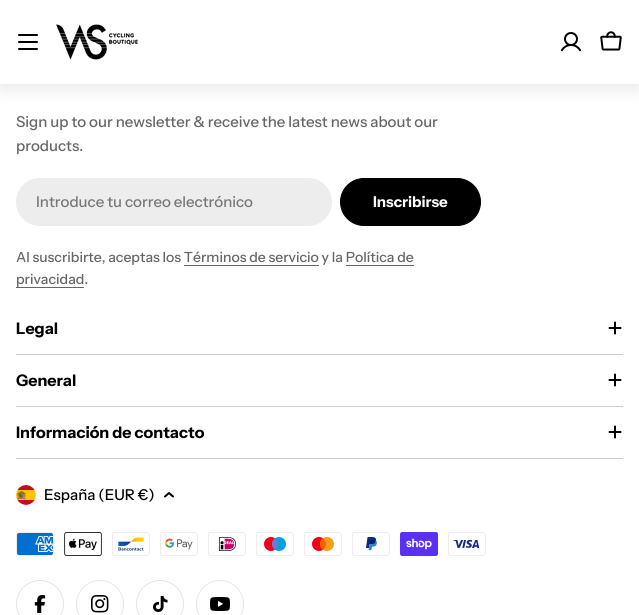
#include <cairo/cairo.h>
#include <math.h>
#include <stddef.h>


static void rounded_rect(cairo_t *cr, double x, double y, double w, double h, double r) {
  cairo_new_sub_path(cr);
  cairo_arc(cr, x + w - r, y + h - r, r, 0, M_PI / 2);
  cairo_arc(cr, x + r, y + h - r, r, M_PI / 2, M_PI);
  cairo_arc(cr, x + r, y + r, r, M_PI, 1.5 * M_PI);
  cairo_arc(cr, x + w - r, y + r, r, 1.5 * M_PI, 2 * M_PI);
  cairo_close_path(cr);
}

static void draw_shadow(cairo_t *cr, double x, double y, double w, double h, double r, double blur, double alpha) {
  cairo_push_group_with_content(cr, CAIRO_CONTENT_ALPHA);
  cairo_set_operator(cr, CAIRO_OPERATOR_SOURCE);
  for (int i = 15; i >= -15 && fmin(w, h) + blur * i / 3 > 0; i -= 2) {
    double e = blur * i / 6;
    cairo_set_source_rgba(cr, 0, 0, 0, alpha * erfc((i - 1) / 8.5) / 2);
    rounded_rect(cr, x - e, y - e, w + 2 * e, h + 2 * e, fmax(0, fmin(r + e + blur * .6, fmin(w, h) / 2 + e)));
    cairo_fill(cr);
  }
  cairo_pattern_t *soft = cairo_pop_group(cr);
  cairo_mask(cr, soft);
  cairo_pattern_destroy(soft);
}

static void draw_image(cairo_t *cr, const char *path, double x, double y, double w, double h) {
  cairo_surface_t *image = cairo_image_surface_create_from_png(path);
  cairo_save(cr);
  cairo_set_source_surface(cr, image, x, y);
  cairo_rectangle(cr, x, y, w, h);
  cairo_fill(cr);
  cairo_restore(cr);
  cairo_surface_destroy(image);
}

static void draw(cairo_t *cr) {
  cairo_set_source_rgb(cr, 1, 1, 1);
  cairo_paint(cr);
  cairo_set_source_rgb(cr, 0, 0, 0);
  draw_shadow(cr, 0, 4, 639, 84, 0, 9, 0.1);
  cairo_set_source_rgb(cr, 1, 1, 1);
  cairo_rectangle(cr, 0, 0, 639, 84);
  cairo_fill(cr);
  cairo_set_source_rgb(cr, 0, 0, 0);
  rounded_rect(cr, 18, 41, 20, 2, 1);
  cairo_fill(cr);
  rounded_rect(cr, 18, 34, 20, 2, 1);
  cairo_fill(cr);
  rounded_rect(cr, 18, 48, 20, 2, 1);
  cairo_fill(cr);
  draw_image(cr, "images/1.png", 56, 24, 82, 36);
  draw_image(cr, "images/2.png", 560, 32, 22, 20);
  draw_image(cr, "images/3.png", 600, 31, 22, 20);
  cairo_set_source_rgb(cr, 237 / 255.0, 237 / 255.0, 237 / 255.0);
  rounded_rect(cr, 16, 178, 316, 48, 24);
  cairo_fill(cr);
  cairo_set_source_rgb(cr, 0, 0, 0);
  rounded_rect(cr, 340.5, 178.5, 140, 47, 23.5);
  cairo_fill_preserve(cr);
  cairo_set_line_width(cr, 1);
  cairo_stroke(cr);
  cairo_set_source_rgb(cr, 102 / 255.0, 102 / 255.0, 102 / 255.0);
  cairo_rectangle(cr, 184, 265, 135, 1);
  cairo_fill(cr);
  cairo_rectangle(cr, 346, 265, 68, 1);
  cairo_fill(cr);
  cairo_rectangle(cr, 16, 287, 68, 1);
  cairo_fill(cr);
  cairo_set_source_rgb(cr, 204 / 255.0, 204 / 255.0, 204 / 255.0);
  cairo_rectangle(cr, 16, 354, 607, 1);
  cairo_fill(cr);
  cairo_new_path(cr);
  cairo_move_to(cr, 609.5, 328);
  cairo_line_to(cr, 620.5, 328);
  cairo_move_to(cr, 615, 322.5);
  cairo_line_to(cr, 615, 333.5);
  cairo_set_source_rgb(cr, 0, 0, 0);
  cairo_set_line_width(cr, 2);
  cairo_set_line_cap(cr, CAIRO_LINE_CAP_ROUND);
  cairo_set_line_join(cr, CAIRO_LINE_JOIN_ROUND);
  cairo_stroke(cr);
  cairo_set_source_rgb(cr, 204 / 255.0, 204 / 255.0, 204 / 255.0);
  cairo_rectangle(cr, 16, 406, 607, 1);
  cairo_fill(cr);
  cairo_new_path(cr);
  cairo_move_to(cr, 609.5, 380);
  cairo_line_to(cr, 620.5, 380);
  cairo_move_to(cr, 615, 374.5);
  cairo_line_to(cr, 615, 385.5);
  cairo_set_source_rgb(cr, 0, 0, 0);
  cairo_stroke(cr);
  cairo_set_source_rgb(cr, 204 / 255.0, 204 / 255.0, 204 / 255.0);
  cairo_rectangle(cr, 16, 458, 607, 1);
  cairo_fill(cr);
  cairo_new_path(cr);
  cairo_move_to(cr, 609.5, 432);
  cairo_line_to(cr, 620.5, 432);
  cairo_move_to(cr, 615, 426.5);
  cairo_line_to(cr, 615, 437.5);
  cairo_set_source_rgb(cr, 0, 0, 0);
  cairo_stroke(cr);
  draw_image(cr, "images/4.png", 16, 485, 20, 20);
  cairo_new_path(cr);
  cairo_move_to(cr, 165, 496.5);
  cairo_line_to(cr, 169, 493);
  cairo_line_to(cr, 173, 496.5);
  cairo_stroke(cr);
  draw_image(cr, "images/5.png", 16, 532, 38, 24);
  draw_image(cr, "images/6.png", 64, 532, 38, 24);
  draw_image(cr, "images/7.png", 112, 532, 38, 24);
  draw_image(cr, "images/8.png", 160, 532, 38, 24);
  draw_image(cr, "images/9.png", 208, 532, 38, 24);
  draw_image(cr, "images/10.png", 256, 532, 38, 24);
  draw_image(cr, "images/11.png", 304, 532, 38, 24);
  draw_image(cr, "images/12.png", 352, 532, 38, 24);
  draw_image(cr, "images/13.png", 400, 532, 38, 24);
  draw_image(cr, "images/14.png", 448, 532, 38, 24);
  cairo_arc(cr, 40, 604, 23.5, 0, 2 * M_PI);
  cairo_set_source_rgb(cr, 229 / 255.0, 229 / 255.0, 229 / 255.0);
  cairo_set_line_width(cr, 1);
  cairo_set_line_cap(cr, CAIRO_LINE_CAP_BUTT);
  cairo_set_line_join(cr, CAIRO_LINE_JOIN_MITER);
  cairo_stroke(cr);
  draw_image(cr, "images/15.png", 34, 595, 12, 18);
  cairo_arc(cr, 100, 604, 23.5, 0, 2 * M_PI);
  cairo_stroke(cr);
  draw_image(cr, "images/16.png", 91, 595, 18, 18);
  cairo_arc(cr, 160, 604, 23.5, 0, 2 * M_PI);
  cairo_stroke(cr);
  draw_image(cr, "images/17.png", 153, 596, 15, 16);
  cairo_arc(cr, 220, 604, 23.5, 0, 2 * M_PI);
  cairo_stroke(cr);
  draw_image(cr, "images/18.png", 210, 597, 20, 14);
  cairo_select_font_face(cr, "Instrument Sans Medium", CAIRO_FONT_SLANT_NORMAL, CAIRO_FONT_WEIGHT_NORMAL);
  cairo_set_font_size(cr, 15);
  cairo_set_source_rgb(cr, 102 / 255.0, 102 / 255.0, 102 / 255.0);
  cairo_move_to(cr, 16, 127);
  cairo_show_text(cr, "Sign up to our newsletter & receive the latest news about our");
  cairo_move_to(cr, 16, 151);
  cairo_show_text(cr, "products.");
  cairo_set_source_rgb(cr, 119 / 255.0, 119 / 255.0, 119 / 255.0);
  cairo_move_to(cr, 36, 207);
  cairo_show_text(cr, "Introduce tu correo electrónico");
  cairo_select_font_face(cr, "Instrument Sans", CAIRO_FONT_SLANT_NORMAL, CAIRO_FONT_WEIGHT_BOLD);
  cairo_set_source_rgb(cr, 1, 1, 1);
  cairo_move_to(cr, 373, 207);
  cairo_show_text(cr, "Inscribirse");
  cairo_select_font_face(cr, "Instrument Sans Medium", CAIRO_FONT_SLANT_NORMAL, CAIRO_FONT_WEIGHT_NORMAL);
  cairo_set_font_size(cr, 14);
  cairo_set_source_rgb(cr, 102 / 255.0, 102 / 255.0, 102 / 255.0);
  cairo_move_to(cr, 16, 262);
  cairo_show_text(cr, "Al suscribirte, aceptas los Términos de servicio y la Política de");
  cairo_move_to(cr, 16, 284);
  cairo_show_text(cr, "privacidad.");
  cairo_select_font_face(cr, "Instrument Sans", CAIRO_FONT_SLANT_NORMAL, CAIRO_FONT_WEIGHT_BOLD);
  cairo_set_font_size(cr, 16);
  cairo_set_source_rgb(cr, 0, 0, 0);
  cairo_move_to(cr, 16, 334);
  cairo_show_text(cr, "Legal");
  cairo_move_to(cr, 16, 386);
  cairo_show_text(cr, "General");
  cairo_move_to(cr, 16, 438);
  cairo_show_text(cr, "Información de contacto");
  cairo_select_font_face(cr, "Instrument Sans Medium", CAIRO_FONT_SLANT_NORMAL, CAIRO_FONT_WEIGHT_NORMAL);
  cairo_set_font_size(cr, 15);
  cairo_move_to(cr, 44, 500);
  cairo_show_text(cr, "España (EUR €)");
}

int main(void) {
  cairo_surface_t *surface = cairo_image_surface_create(CAIRO_FORMAT_RGB24, 639, 615);
  cairo_t *cr = cairo_create(surface);
  cairo_font_options_t *options = cairo_font_options_create();
  cairo_font_options_set_hint_metrics(options, CAIRO_HINT_METRICS_OFF);
  cairo_font_options_set_hint_style(options, CAIRO_HINT_STYLE_NONE);
  cairo_set_font_options(cr, options);
  cairo_set_miter_limit(cr, 4);
  draw(cr);
  cairo_surface_write_to_png(surface, "out.png");
  cairo_font_options_destroy(options);
  cairo_destroy(cr);
  cairo_surface_destroy(surface);
  return 0;
}
